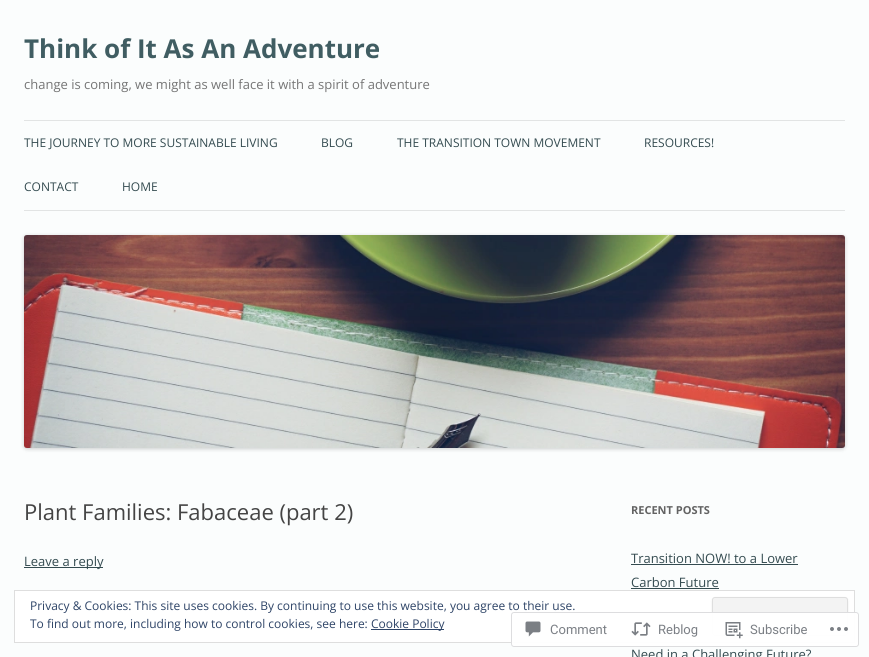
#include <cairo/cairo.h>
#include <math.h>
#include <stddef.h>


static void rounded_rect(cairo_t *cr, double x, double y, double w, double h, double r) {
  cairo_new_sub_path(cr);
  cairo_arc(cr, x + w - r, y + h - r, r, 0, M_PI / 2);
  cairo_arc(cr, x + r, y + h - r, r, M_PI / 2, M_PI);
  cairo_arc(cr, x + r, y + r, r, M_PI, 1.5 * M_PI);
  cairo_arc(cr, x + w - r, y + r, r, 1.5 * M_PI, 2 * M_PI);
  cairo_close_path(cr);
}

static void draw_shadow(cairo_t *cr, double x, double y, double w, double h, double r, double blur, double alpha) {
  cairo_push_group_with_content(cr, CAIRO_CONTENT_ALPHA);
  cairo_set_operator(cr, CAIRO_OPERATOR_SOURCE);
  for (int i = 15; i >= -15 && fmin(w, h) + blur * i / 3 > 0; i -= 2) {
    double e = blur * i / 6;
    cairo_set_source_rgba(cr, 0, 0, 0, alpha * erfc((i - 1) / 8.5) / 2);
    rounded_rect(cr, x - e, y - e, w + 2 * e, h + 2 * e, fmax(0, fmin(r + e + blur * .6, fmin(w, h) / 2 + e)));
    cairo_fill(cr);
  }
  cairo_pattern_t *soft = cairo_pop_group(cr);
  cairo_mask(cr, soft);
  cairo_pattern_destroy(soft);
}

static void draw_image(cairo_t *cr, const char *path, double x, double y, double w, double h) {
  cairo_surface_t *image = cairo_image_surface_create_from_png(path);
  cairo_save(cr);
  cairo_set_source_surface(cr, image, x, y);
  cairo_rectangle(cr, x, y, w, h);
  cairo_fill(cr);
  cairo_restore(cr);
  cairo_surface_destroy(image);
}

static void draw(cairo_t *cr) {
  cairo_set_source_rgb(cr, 251 / 255.0, 253 / 255.0, 253 / 255.0);
  cairo_paint(cr);
  cairo_set_source_rgb(cr, 226 / 255.0, 228 / 255.0, 228 / 255.0);
  cairo_rectangle(cr, 24, 120, 821, 1);
  cairo_fill(cr);
  cairo_rectangle(cr, 24, 210, 821, 1);
  cairo_fill(cr);
  cairo_set_source_rgb(cr, 0, 0, 0);
  draw_shadow(cr, 24, 236, 821, 213, 3, 2, 0.2);
  draw_image(cr, "images/1.png", 24, 235, 821, 213);
  cairo_set_source_rgb(cr, 52 / 255.0, 75 / 255.0, 80 / 255.0);
  cairo_rectangle(cr, 24, 567, 79, 1);
  cairo_fill(cr);
  cairo_rectangle(cr, 631, 564, 167, 1);
  cairo_fill(cr);
  cairo_rectangle(cr, 631, 588, 88, 1);
  cairo_fill(cr);
  cairo_set_source_rgb(cr, 1, 1, 1);
  cairo_rectangle(cr, 14.5, 590.5, 840, 52);
  cairo_fill_preserve(cr);
  cairo_set_source_rgb(cr, 222 / 255.0, 222 / 255.0, 222 / 255.0);
  cairo_set_line_width(cr, 1);
  cairo_stroke(cr);
  cairo_set_source_rgb(cr, 64 / 255.0, 64 / 255.0, 64 / 255.0);
  draw_shadow(cr, 712, 598, 136, 39, 3, 1, 0.1);
  cairo_set_source_rgb(cr, 243 / 255.0, 243 / 255.0, 243 / 255.0);
  rounded_rect(cr, 712.5, 597.5, 135, 38, 2.5);
  cairo_fill_preserve(cr);
  cairo_set_source_rgb(cr, 222 / 255.0, 222 / 255.0, 222 / 255.0);
  cairo_stroke(cr);
  cairo_set_source_rgb(cr, 46 / 255.0, 68 / 255.0, 103 / 255.0);
  cairo_rectangle(cr, 371, 629, 73, 1);
  cairo_fill(cr);
  cairo_select_font_face(cr, "Open Sans", CAIRO_FONT_SLANT_NORMAL, CAIRO_FONT_WEIGHT_BOLD);
  cairo_set_font_size(cr, 26);
  cairo_set_source_rgb(cr, 64 / 255.0, 93 / 255.0, 98 / 255.0);
  cairo_move_to(cr, 24, 58);
  cairo_show_text(cr, "Think of It As An Adventure");
  cairo_select_font_face(cr, "Open Sans", CAIRO_FONT_SLANT_NORMAL, CAIRO_FONT_WEIGHT_NORMAL);
  cairo_set_font_size(cr, 13);
  cairo_set_source_rgb(cr, 117 / 255.0, 117 / 255.0, 117 / 255.0);
  cairo_move_to(cr, 24, 89);
  cairo_show_text(cr, "change is coming, we might as well face it with a spirit of adventure");
  cairo_set_font_size(cr, 12);
  cairo_set_source_rgb(cr, 52 / 255.0, 75 / 255.0, 80 / 255.0);
  cairo_move_to(cr, 24, 147);
  cairo_show_text(cr, "THE JOURNEY TO MORE SUSTAINABLE LIVING");
  cairo_move_to(cr, 321, 147);
  cairo_show_text(cr, "BLOG");
  cairo_move_to(cr, 397, 147);
  cairo_show_text(cr, "THE TRANSITION TOWN MOVEMENT");
  cairo_move_to(cr, 644, 147);
  cairo_show_text(cr, "RESOURCES!");
  cairo_move_to(cr, 24, 191);
  cairo_show_text(cr, "CONTACT");
  cairo_move_to(cr, 122, 191);
  cairo_show_text(cr, "HOME");
  cairo_set_font_size(cr, 22);
  cairo_set_source_rgb(cr, 68 / 255.0, 68 / 255.0, 68 / 255.0);
  cairo_move_to(cr, 24, 520);
  cairo_show_text(cr, "Plant Families: Fabaceae (part 2)");
  cairo_set_font_size(cr, 13);
  cairo_set_source_rgb(cr, 52 / 255.0, 75 / 255.0, 80 / 255.0);
  cairo_move_to(cr, 24, 566);
  cairo_show_text(cr, "Leave a reply");
  cairo_select_font_face(cr, "Open Sans", CAIRO_FONT_SLANT_NORMAL, CAIRO_FONT_WEIGHT_BOLD);
  cairo_set_font_size(cr, 11);
  cairo_set_source_rgb(cr, 99 / 255.0, 99 / 255.0, 99 / 255.0);
  cairo_move_to(cr, 631, 514);
  cairo_show_text(cr, "RECENT POSTS");
  cairo_select_font_face(cr, "Open Sans", CAIRO_FONT_SLANT_NORMAL, CAIRO_FONT_WEIGHT_NORMAL);
  cairo_set_font_size(cr, 13);
  cairo_set_source_rgb(cr, 52 / 255.0, 75 / 255.0, 80 / 255.0);
  cairo_move_to(cr, 631, 563);
  cairo_show_text(cr, "Transition NOW! to a Lower");
  cairo_move_to(cr, 631, 587);
  cairo_show_text(cr, "Carbon Future");
  cairo_move_to(cr, 631, 659);
  cairo_show_text(cr, "Need in a Challenging Future?");
  cairo_set_font_size(cr, 12);
  cairo_set_source_rgb(cr, 46 / 255.0, 68 / 255.0, 103 / 255.0);
  cairo_move_to(cr, 30, 610);
  cairo_show_text(cr, "Privacy & Cookies: This site uses cookies. By continuing to use this website, you agree to their use.");
  cairo_move_to(cr, 30, 628);
  cairo_show_text(cr, "To find out more, including how to control cookies, see here:");
  cairo_move_to(cr, 371, 628);
  cairo_show_text(cr, "Cookie Policy");
  cairo_set_source_rgba(cr, 1, 1, 1, 0.98);
  rounded_rect(cr, 511, 612, 348, 35, 3);
  cairo_fill(cr);
  rounded_rect(cr, 511.5, 612.5, 347, 34, 2.5);
  cairo_set_source_rgba(cr, 220 / 255.0, 220 / 255.0, 222 / 255.0, 0.98);
  cairo_stroke(cr);
  draw_image(cr, "images/2.png", 525, 621, 16, 16);
  cairo_select_font_face(cr, "Roboto", CAIRO_FONT_SLANT_NORMAL, CAIRO_FONT_WEIGHT_NORMAL);
  cairo_set_font_size(cr, 13);
  cairo_set_source_rgb(cr, 123 / 255.0, 127 / 255.0, 133 / 255.0);
  cairo_move_to(cr, 550, 634);
  cairo_show_text(cr, "Comment");
  draw_image(cr, "images/3.png", 631, 622, 20, 14);
  cairo_move_to(cr, 658, 634);
  cairo_show_text(cr, "Reblog");
  draw_image(cr, "images/4.png", 725, 622, 18, 17);
  cairo_move_to(cr, 750, 634);
  cairo_show_text(cr, "Subscribe");
  draw_image(cr, "images/5.png", 830, 627, 18, 4);
}

int main(void) {
  cairo_surface_t *surface = cairo_image_surface_create(CAIRO_FORMAT_RGB24, 869, 657);
  cairo_t *cr = cairo_create(surface);
  cairo_font_options_t *options = cairo_font_options_create();
  cairo_font_options_set_hint_metrics(options, CAIRO_HINT_METRICS_OFF);
  cairo_font_options_set_hint_style(options, CAIRO_HINT_STYLE_NONE);
  cairo_set_font_options(cr, options);
  cairo_set_miter_limit(cr, 4);
  draw(cr);
  cairo_surface_write_to_png(surface, "out.png");
  cairo_font_options_destroy(options);
  cairo_destroy(cr);
  cairo_surface_destroy(surface);
  return 0;
}
